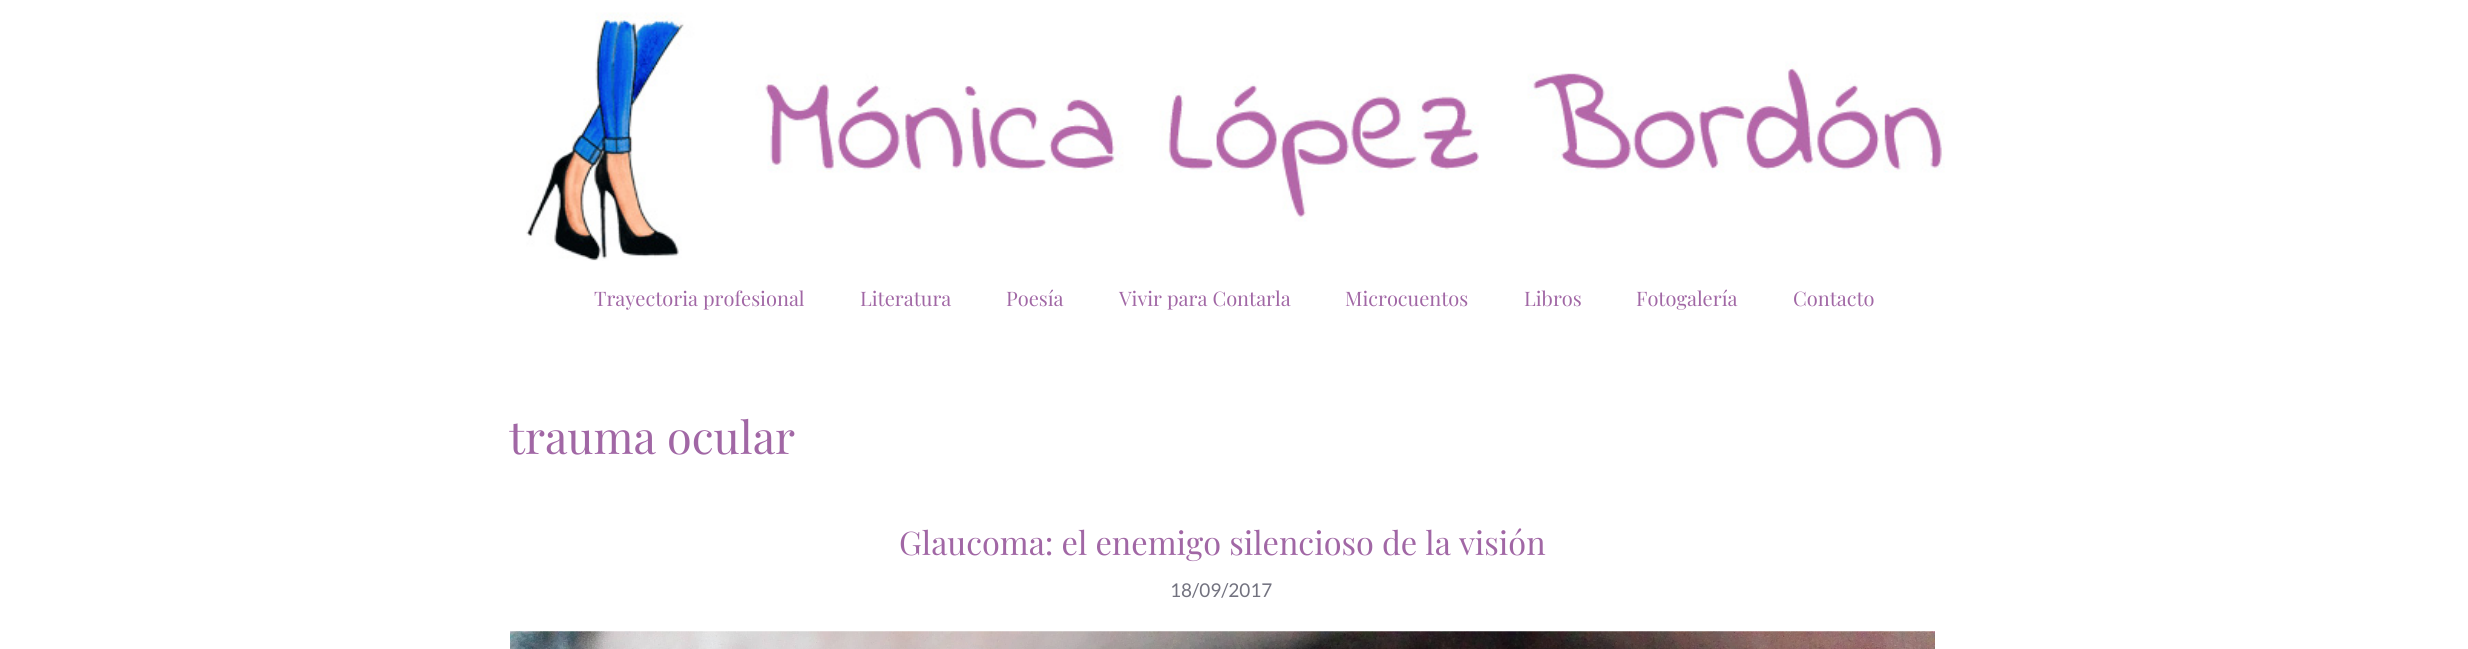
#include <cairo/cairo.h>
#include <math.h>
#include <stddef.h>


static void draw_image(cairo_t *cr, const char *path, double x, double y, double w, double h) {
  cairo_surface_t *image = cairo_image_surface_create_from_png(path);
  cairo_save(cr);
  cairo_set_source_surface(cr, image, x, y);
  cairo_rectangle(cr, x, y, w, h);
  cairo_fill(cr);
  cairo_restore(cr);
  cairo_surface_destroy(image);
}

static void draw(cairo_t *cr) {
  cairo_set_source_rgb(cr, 1, 1, 1);
  cairo_paint(cr);
  draw_image(cr, "images/1.png", 526, 12, 1419, 249);
  draw_image(cr, "images/2.png", 510, 631, 1425, 18);
  cairo_select_font_face(cr, "Playfair Display", CAIRO_FONT_SLANT_NORMAL, CAIRO_FONT_WEIGHT_NORMAL);
  cairo_set_font_size(cr, 20);
  cairo_set_source_rgb(cr, 161 / 255.0, 103 / 255.0, 165 / 255.0);
  cairo_move_to(cr, 594, 306);
  cairo_show_text(cr, "Trayectoria profesional");
  cairo_move_to(cr, 860, 306);
  cairo_show_text(cr, "Literatura");
  cairo_move_to(cr, 1006, 306);
  cairo_show_text(cr, "Poesía");
  cairo_move_to(cr, 1119, 306);
  cairo_show_text(cr, "Vivir para Contarla");
  cairo_move_to(cr, 1345, 306);
  cairo_show_text(cr, "Microcuentos");
  cairo_move_to(cr, 1524, 306);
  cairo_show_text(cr, "Libros");
  cairo_move_to(cr, 1636, 306);
  cairo_show_text(cr, "Fotogalería");
  cairo_move_to(cr, 1793, 306);
  cairo_show_text(cr, "Contacto");
  cairo_set_font_size(cr, 45);
  cairo_move_to(cr, 509, 454);
  cairo_show_text(cr, "trauma ocular");
  cairo_set_font_size(cr, 32.5);
  cairo_move_to(cr, 899, 555);
  cairo_show_text(cr, "Glaucoma: el enemigo silencioso de la visión");
  cairo_select_font_face(cr, "Lato", CAIRO_FONT_SLANT_NORMAL, CAIRO_FONT_WEIGHT_NORMAL);
  cairo_set_font_size(cr, 19);
  cairo_set_source_rgb(cr, 114 / 255.0, 114 / 255.0, 127 / 255.0);
  cairo_move_to(cr, 1170, 597);
  cairo_show_text(cr, "18/09/2017");
}

int main(void) {
  cairo_surface_t *surface = cairo_image_surface_create(CAIRO_FORMAT_RGB24, 2468, 649);
  cairo_t *cr = cairo_create(surface);
  cairo_font_options_t *options = cairo_font_options_create();
  cairo_font_options_set_hint_metrics(options, CAIRO_HINT_METRICS_OFF);
  cairo_font_options_set_hint_style(options, CAIRO_HINT_STYLE_NONE);
  cairo_set_font_options(cr, options);
  cairo_set_miter_limit(cr, 4);
  draw(cr);
  cairo_surface_write_to_png(surface, "out.png");
  cairo_font_options_destroy(options);
  cairo_destroy(cr);
  cairo_surface_destroy(surface);
  return 0;
}
